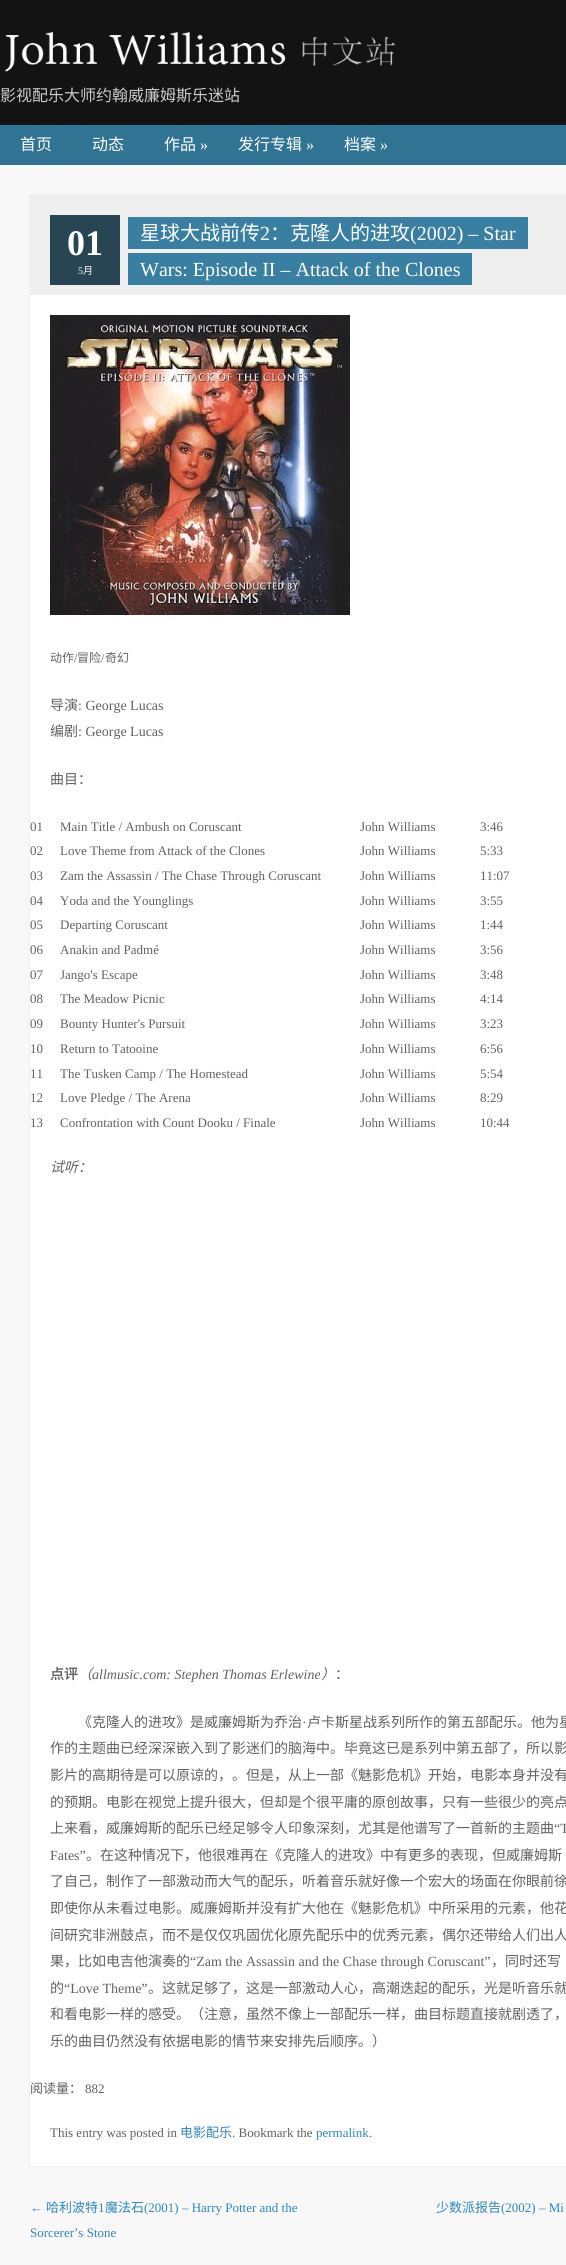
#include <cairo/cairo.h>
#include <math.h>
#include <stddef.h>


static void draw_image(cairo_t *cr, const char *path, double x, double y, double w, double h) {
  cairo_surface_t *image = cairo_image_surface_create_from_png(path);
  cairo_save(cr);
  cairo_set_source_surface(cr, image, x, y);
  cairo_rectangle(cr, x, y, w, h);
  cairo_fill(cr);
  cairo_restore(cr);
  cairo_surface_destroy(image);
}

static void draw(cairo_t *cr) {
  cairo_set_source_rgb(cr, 19 / 255.0, 19 / 255.0, 19 / 255.0);
  cairo_paint(cr);
  draw_image(cr, "images/1.png", 4, 32, 392, 40);
  cairo_set_source_rgb(cr, 48 / 255.0, 115 / 255.0, 147 / 255.0);
  cairo_rectangle(cr, 0, 125, 566, 40);
  cairo_fill(cr);
  cairo_set_source_rgb(cr, 248 / 255.0, 248 / 255.0, 248 / 255.0);
  cairo_rectangle(cr, 0, 165, 566, 2100);
  cairo_fill(cr);
  cairo_rectangle(cr, 29.5, 194.5, 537, 1972);
  cairo_set_source_rgb(cr, 239 / 255.0, 239 / 255.0, 239 / 255.0);
  cairo_set_line_width(cr, 1);
  cairo_stroke(cr);
  cairo_set_source_rgb(cr, 1, 1, 1);
  cairo_rectangle(cr, 30, 295, 536, 1871);
  cairo_fill(cr);
  cairo_set_source_rgb(cr, 239 / 255.0, 239 / 255.0, 239 / 255.0);
  cairo_rectangle(cr, 30, 195, 536, 100);
  cairo_fill(cr);
  cairo_set_source_rgb(cr, 40 / 255.0, 69 / 255.0, 83 / 255.0);
  cairo_rectangle(cr, 50, 215, 70, 70);
  cairo_fill(cr);
  cairo_set_source_rgb(cr, 57 / 255.0, 127 / 255.0, 161 / 255.0);
  cairo_rectangle(cr, 128, 217, 12, 32);
  cairo_fill(cr);
  cairo_rectangle(cr, 140, 217, 388, 32);
  cairo_fill(cr);
  cairo_rectangle(cr, 128, 253, 12, 32);
  cairo_fill(cr);
  cairo_rectangle(cr, 140, 253, 332, 32);
  cairo_fill(cr);
  draw_image(cr, "images/2.png", 50, 315, 300, 300);
  cairo_select_font_face(cr, "Noto Sans CJK SC", CAIRO_FONT_SLANT_NORMAL, CAIRO_FONT_WEIGHT_NORMAL);
  cairo_set_font_size(cr, 16);
  cairo_set_source_rgb(cr, 203 / 255.0, 203 / 255.0, 203 / 255.0);
  cairo_move_to(cr, 0, 101);
  cairo_show_text(cr, "影视配乐大师约翰威廉姆斯乐迷站");
  cairo_set_source_rgb(cr, 1, 1, 1);
  cairo_move_to(cr, 20, 150);
  cairo_show_text(cr, "首页");
  cairo_move_to(cr, 92, 150);
  cairo_show_text(cr, "动态");
  cairo_move_to(cr, 164, 150);
  cairo_show_text(cr, "作品");
  cairo_select_font_face(cr, "Liberation Serif", CAIRO_FONT_SLANT_NORMAL, CAIRO_FONT_WEIGHT_NORMAL);
  cairo_move_to(cr, 200, 150);
  cairo_show_text(cr, "»");
  cairo_select_font_face(cr, "Noto Sans CJK SC", CAIRO_FONT_SLANT_NORMAL, CAIRO_FONT_WEIGHT_NORMAL);
  cairo_move_to(cr, 238, 150);
  cairo_show_text(cr, "发行专辑");
  cairo_select_font_face(cr, "Liberation Serif", CAIRO_FONT_SLANT_NORMAL, CAIRO_FONT_WEIGHT_NORMAL);
  cairo_move_to(cr, 306, 150);
  cairo_show_text(cr, "»");
  cairo_select_font_face(cr, "Noto Sans CJK SC", CAIRO_FONT_SLANT_NORMAL, CAIRO_FONT_WEIGHT_NORMAL);
  cairo_move_to(cr, 344, 150);
  cairo_show_text(cr, "档案");
  cairo_select_font_face(cr, "Liberation Serif", CAIRO_FONT_SLANT_NORMAL, CAIRO_FONT_WEIGHT_NORMAL);
  cairo_move_to(cr, 380, 150);
  cairo_show_text(cr, "»");
  cairo_select_font_face(cr, "Liberation Serif", CAIRO_FONT_SLANT_NORMAL, CAIRO_FONT_WEIGHT_BOLD);
  cairo_set_font_size(cr, 36);
  cairo_move_to(cr, 67, 255);
  cairo_show_text(cr, "01");
  cairo_select_font_face(cr, "Liberation Serif", CAIRO_FONT_SLANT_NORMAL, CAIRO_FONT_WEIGHT_NORMAL);
  cairo_set_font_size(cr, 10);
  cairo_move_to(cr, 78, 274);
  cairo_show_text(cr, "5");
  cairo_select_font_face(cr, "Noto Sans CJK SC", CAIRO_FONT_SLANT_NORMAL, CAIRO_FONT_WEIGHT_NORMAL);
  cairo_move_to(cr, 83, 274);
  cairo_show_text(cr, "月");
  cairo_set_font_size(cr, 20);
  cairo_move_to(cr, 140, 240);
  cairo_show_text(cr, "星球大战前传");
  cairo_select_font_face(cr, "Liberation Serif", CAIRO_FONT_SLANT_NORMAL, CAIRO_FONT_WEIGHT_NORMAL);
  cairo_move_to(cr, 260, 240);
  cairo_show_text(cr, "2");
  cairo_select_font_face(cr, "Noto Sans CJK SC", CAIRO_FONT_SLANT_NORMAL, CAIRO_FONT_WEIGHT_NORMAL);
  cairo_move_to(cr, 270, 240);
  cairo_show_text(cr, "：克隆人的进攻");
  cairo_select_font_face(cr, "Liberation Serif", CAIRO_FONT_SLANT_NORMAL, CAIRO_FONT_WEIGHT_NORMAL);
  cairo_move_to(cr, 410, 240);
  cairo_show_text(cr, "(2002) – Star");
  cairo_move_to(cr, 140, 276);
  cairo_show_text(cr, "Wars: Episode II – Attack of the Clones");
  cairo_select_font_face(cr, "Noto Sans CJK SC", CAIRO_FONT_SLANT_NORMAL, CAIRO_FONT_WEIGHT_NORMAL);
  cairo_set_font_size(cr, 12);
  cairo_set_source_rgb(cr, 98 / 255.0, 98 / 255.0, 98 / 255.0);
  cairo_move_to(cr, 50, 662);
  cairo_show_text(cr, "动作");
  cairo_select_font_face(cr, "Liberation Serif", CAIRO_FONT_SLANT_NORMAL, CAIRO_FONT_WEIGHT_NORMAL);
  cairo_move_to(cr, 74, 662);
  cairo_show_text(cr, "/");
  cairo_select_font_face(cr, "Noto Sans CJK SC", CAIRO_FONT_SLANT_NORMAL, CAIRO_FONT_WEIGHT_NORMAL);
  cairo_move_to(cr, 77, 662);
  cairo_show_text(cr, "冒险");
  cairo_select_font_face(cr, "Liberation Serif", CAIRO_FONT_SLANT_NORMAL, CAIRO_FONT_WEIGHT_NORMAL);
  cairo_move_to(cr, 101, 662);
  cairo_show_text(cr, "/");
  cairo_select_font_face(cr, "Noto Sans CJK SC", CAIRO_FONT_SLANT_NORMAL, CAIRO_FONT_WEIGHT_NORMAL);
  cairo_move_to(cr, 105, 662);
  cairo_show_text(cr, "奇幻");
  cairo_set_font_size(cr, 14);
  cairo_move_to(cr, 50, 710);
  cairo_show_text(cr, "导演");
  cairo_select_font_face(cr, "Liberation Serif", CAIRO_FONT_SLANT_NORMAL, CAIRO_FONT_WEIGHT_NORMAL);
  cairo_move_to(cr, 78, 710);
  cairo_show_text(cr, ": George Lucas");
  cairo_select_font_face(cr, "Noto Sans CJK SC", CAIRO_FONT_SLANT_NORMAL, CAIRO_FONT_WEIGHT_NORMAL);
  cairo_move_to(cr, 50, 736);
  cairo_show_text(cr, "编剧");
  cairo_select_font_face(cr, "Liberation Serif", CAIRO_FONT_SLANT_NORMAL, CAIRO_FONT_WEIGHT_NORMAL);
  cairo_move_to(cr, 78, 736);
  cairo_show_text(cr, ": George Lucas");
  cairo_select_font_face(cr, "Noto Sans CJK SC", CAIRO_FONT_SLANT_NORMAL, CAIRO_FONT_WEIGHT_NORMAL);
  cairo_move_to(cr, 50, 784);
  cairo_show_text(cr, "曲目：");
  cairo_select_font_face(cr, "Liberation Serif", CAIRO_FONT_SLANT_NORMAL, CAIRO_FONT_WEIGHT_NORMAL);
  cairo_set_font_size(cr, 13);
  cairo_move_to(cr, 30, 831);
  cairo_show_text(cr, "01");
  cairo_move_to(cr, 60, 831);
  cairo_show_text(cr, "Main Title / Ambush on Coruscant");
  cairo_move_to(cr, 360, 831);
  cairo_show_text(cr, "John Williams");
  cairo_move_to(cr, 480, 831);
  cairo_show_text(cr, "3:46");
  cairo_move_to(cr, 30, 855);
  cairo_show_text(cr, "02");
  cairo_move_to(cr, 60, 855);
  cairo_show_text(cr, "Love Theme from Attack of the Clones");
  cairo_move_to(cr, 360, 855);
  cairo_show_text(cr, "John Williams");
  cairo_move_to(cr, 480, 855);
  cairo_show_text(cr, "5:33");
  cairo_move_to(cr, 30, 880);
  cairo_show_text(cr, "03");
  cairo_move_to(cr, 60, 880);
  cairo_show_text(cr, "Zam the Assassin / The Chase Through Coruscant");
  cairo_move_to(cr, 360, 880);
  cairo_show_text(cr, "John Williams");
  cairo_move_to(cr, 480, 880);
  cairo_show_text(cr, "11:07");
  cairo_move_to(cr, 30, 905);
  cairo_show_text(cr, "04");
  cairo_move_to(cr, 60, 905);
  cairo_show_text(cr, "Yoda and the Younglings");
  cairo_move_to(cr, 360, 905);
  cairo_show_text(cr, "John Williams");
  cairo_move_to(cr, 480, 905);
  cairo_show_text(cr, "3:55");
  cairo_move_to(cr, 30, 929);
  cairo_show_text(cr, "05");
  cairo_move_to(cr, 60, 929);
  cairo_show_text(cr, "Departing Coruscant");
  cairo_move_to(cr, 360, 929);
  cairo_show_text(cr, "John Williams");
  cairo_move_to(cr, 480, 929);
  cairo_show_text(cr, "1:44");
  cairo_move_to(cr, 30, 954);
  cairo_show_text(cr, "06");
  cairo_move_to(cr, 60, 954);
  cairo_show_text(cr, "Anakin and Padmé");
  cairo_move_to(cr, 360, 954);
  cairo_show_text(cr, "John Williams");
  cairo_move_to(cr, 480, 954);
  cairo_show_text(cr, "3:56");
  cairo_move_to(cr, 30, 979);
  cairo_show_text(cr, "07");
  cairo_move_to(cr, 60, 979);
  cairo_show_text(cr, "Jango's Escape");
  cairo_move_to(cr, 360, 979);
  cairo_show_text(cr, "John Williams");
  cairo_move_to(cr, 480, 979);
  cairo_show_text(cr, "3:48");
  cairo_move_to(cr, 30, 1003);
  cairo_show_text(cr, "08");
  cairo_move_to(cr, 60, 1003);
  cairo_show_text(cr, "The Meadow Picnic");
  cairo_move_to(cr, 360, 1003);
  cairo_show_text(cr, "John Williams");
  cairo_move_to(cr, 480, 1003);
  cairo_show_text(cr, "4:14");
  cairo_move_to(cr, 30, 1028);
  cairo_show_text(cr, "09");
  cairo_move_to(cr, 60, 1028);
  cairo_show_text(cr, "Bounty Hunter's Pursuit");
  cairo_move_to(cr, 360, 1028);
  cairo_show_text(cr, "John Williams");
  cairo_move_to(cr, 480, 1028);
  cairo_show_text(cr, "3:23");
  cairo_move_to(cr, 30, 1053);
  cairo_show_text(cr, "10");
  cairo_move_to(cr, 60, 1053);
  cairo_show_text(cr, "Return to Tatooine");
  cairo_move_to(cr, 360, 1053);
  cairo_show_text(cr, "John Williams");
  cairo_move_to(cr, 480, 1053);
  cairo_show_text(cr, "6:56");
  cairo_move_to(cr, 30, 1078);
  cairo_show_text(cr, "11");
  cairo_move_to(cr, 60, 1078);
  cairo_show_text(cr, "The Tusken Camp / The Homestead");
  cairo_move_to(cr, 360, 1078);
  cairo_show_text(cr, "John Williams");
  cairo_move_to(cr, 480, 1078);
  cairo_show_text(cr, "5:54");
  cairo_move_to(cr, 30, 1102);
  cairo_show_text(cr, "12");
  cairo_move_to(cr, 60, 1102);
  cairo_show_text(cr, "Love Pledge / The Arena");
  cairo_move_to(cr, 360, 1102);
  cairo_show_text(cr, "John Williams");
  cairo_move_to(cr, 480, 1102);
  cairo_show_text(cr, "8:29");
  cairo_move_to(cr, 30, 1127);
  cairo_show_text(cr, "13");
  cairo_move_to(cr, 60, 1127);
  cairo_show_text(cr, "Confrontation with Count Dooku / Finale");
  cairo_move_to(cr, 360, 1127);
  cairo_show_text(cr, "John Williams");
  cairo_move_to(cr, 480, 1127);
  cairo_show_text(cr, "10:44");
  cairo_select_font_face(cr, "Noto Sans CJK SC", CAIRO_FONT_SLANT_ITALIC, CAIRO_FONT_WEIGHT_NORMAL);
  cairo_set_font_size(cr, 14);
  cairo_move_to(cr, 50, 1172);
  cairo_show_text(cr, "试听：");
  cairo_select_font_face(cr, "Noto Sans CJK SC", CAIRO_FONT_SLANT_NORMAL, CAIRO_FONT_WEIGHT_BOLD);
  cairo_move_to(cr, 50, 1679);
  cairo_show_text(cr, "点评");
  cairo_select_font_face(cr, "Noto Sans CJK SC", CAIRO_FONT_SLANT_ITALIC, CAIRO_FONT_WEIGHT_NORMAL);
  cairo_move_to(cr, 78, 1679);
  cairo_show_text(cr, "（");
  cairo_select_font_face(cr, "Liberation Serif", CAIRO_FONT_SLANT_ITALIC, CAIRO_FONT_WEIGHT_NORMAL);
  cairo_move_to(cr, 92, 1679);
  cairo_show_text(cr, "allmusic.com: Stephen Thomas Erlewine");
  cairo_select_font_face(cr, "Noto Sans CJK SC", CAIRO_FONT_SLANT_ITALIC, CAIRO_FONT_WEIGHT_NORMAL);
  cairo_move_to(cr, 321, 1679);
  cairo_show_text(cr, "）");
  cairo_select_font_face(cr, "Noto Sans CJK SC", CAIRO_FONT_SLANT_NORMAL, CAIRO_FONT_WEIGHT_NORMAL);
  cairo_move_to(cr, 335, 1679);
  cairo_show_text(cr, "：");
  cairo_move_to(cr, 78, 1727);
  cairo_show_text(cr, "《克隆人的进攻》是威廉姆斯为乔治");
  cairo_select_font_face(cr, "Liberation Serif", CAIRO_FONT_SLANT_NORMAL, CAIRO_FONT_WEIGHT_NORMAL);
  cairo_move_to(cr, 302, 1727);
  cairo_show_text(cr, "·");
  cairo_select_font_face(cr, "Noto Sans CJK SC", CAIRO_FONT_SLANT_NORMAL, CAIRO_FONT_WEIGHT_NORMAL);
  cairo_move_to(cr, 307, 1727);
  cairo_show_text(cr, "卢卡斯星战系列所作的第五部配乐。他为星");
  cairo_move_to(cr, 50, 1753);
  cairo_show_text(cr, "作的主题曲已经深深嵌入到了影迷们的脑海中。毕竟这已是系列中第五部了，所以影");
  cairo_move_to(cr, 50, 1780);
  cairo_show_text(cr, "影片的高期待是可以原谅的，。但是，从上一部《魅影危机》开始，电影本身并没有");
  cairo_move_to(cr, 50, 1807);
  cairo_show_text(cr, "的预期。电影在视觉上提升很大，但却是个很平庸的原创故事，只有一些很少的亮点");
  cairo_move_to(cr, 50, 1833);
  cairo_show_text(cr, "上来看，威廉姆斯的配乐已经足够令人印象深刻，尤其是他谱写了一首新的主题曲");
  cairo_select_font_face(cr, "Liberation Serif", CAIRO_FONT_SLANT_NORMAL, CAIRO_FONT_WEIGHT_NORMAL);
  cairo_move_to(cr, 554, 1833);
  cairo_show_text(cr, "“T");
  cairo_move_to(cr, 50, 1860);
  cairo_show_text(cr, "Fates”");
  cairo_select_font_face(cr, "Noto Sans CJK SC", CAIRO_FONT_SLANT_NORMAL, CAIRO_FONT_WEIGHT_NORMAL);
  cairo_move_to(cr, 86, 1860);
  cairo_show_text(cr, "。在这种情况下，他很难再在《克隆人的进攻》中有更多的表现，但威廉姆斯");
  cairo_move_to(cr, 50, 1886);
  cairo_show_text(cr, "了自己，制作了一部激动而大气的配乐，听着音乐就好像一个宏大的场面在你眼前徐");
  cairo_move_to(cr, 50, 1913);
  cairo_show_text(cr, "即使你从未看过电影。威廉姆斯并没有扩大他在《魅影危机》中所采用的元素，他花");
  cairo_move_to(cr, 50, 1940);
  cairo_show_text(cr, "间研究非洲鼓点，而不是仅仅巩固优化原先配乐中的优秀元素，偶尔还带给人们出人");
  cairo_move_to(cr, 50, 1966);
  cairo_show_text(cr, "果，比如电吉他演奏的");
  cairo_select_font_face(cr, "Liberation Serif", CAIRO_FONT_SLANT_NORMAL, CAIRO_FONT_WEIGHT_NORMAL);
  cairo_move_to(cr, 190, 1966);
  cairo_show_text(cr, "“Zam the Assassin and the Chase through Coruscant”");
  cairo_select_font_face(cr, "Noto Sans CJK SC", CAIRO_FONT_SLANT_NORMAL, CAIRO_FONT_WEIGHT_NORMAL);
  cairo_move_to(cr, 491, 1966);
  cairo_show_text(cr, "，同时还写");
  cairo_move_to(cr, 50, 1993);
  cairo_show_text(cr, "的");
  cairo_select_font_face(cr, "Liberation Serif", CAIRO_FONT_SLANT_NORMAL, CAIRO_FONT_WEIGHT_NORMAL);
  cairo_move_to(cr, 64, 1993);
  cairo_show_text(cr, "“Love Theme”");
  cairo_select_font_face(cr, "Noto Sans CJK SC", CAIRO_FONT_SLANT_NORMAL, CAIRO_FONT_WEIGHT_NORMAL);
  cairo_move_to(cr, 148, 1993);
  cairo_show_text(cr, "。这就足够了，这是一部激动人心，高潮迭起的配乐，光是听音乐就");
  cairo_move_to(cr, 50, 2019);
  cairo_show_text(cr, "和看电影一样的感受。（注意，虽然不像上一部配乐一样，曲目标题直接就剧透了，");
  cairo_move_to(cr, 50, 2046);
  cairo_show_text(cr, "乐的曲目仍然没有依据电影的情节来安排先后顺序。）");
  cairo_set_font_size(cr, 13);
  cairo_move_to(cr, 30, 2093);
  cairo_show_text(cr, "阅读量：");
  cairo_select_font_face(cr, "Liberation Serif", CAIRO_FONT_SLANT_NORMAL, CAIRO_FONT_WEIGHT_NORMAL);
  cairo_move_to(cr, 85, 2093);
  cairo_show_text(cr, "882");
  cairo_move_to(cr, 50, 2137);
  cairo_show_text(cr, "This entry was posted in");
  cairo_select_font_face(cr, "Noto Sans CJK SC", CAIRO_FONT_SLANT_NORMAL, CAIRO_FONT_WEIGHT_NORMAL);
  cairo_set_source_rgb(cr, 46 / 255.0, 135 / 255.0, 190 / 255.0);
  cairo_move_to(cr, 180, 2137);
  cairo_show_text(cr, "电影配乐");
  cairo_select_font_face(cr, "Liberation Serif", CAIRO_FONT_SLANT_NORMAL, CAIRO_FONT_WEIGHT_NORMAL);
  cairo_set_source_rgb(cr, 98 / 255.0, 98 / 255.0, 98 / 255.0);
  cairo_move_to(cr, 232, 2137);
  cairo_show_text(cr, ". Bookmark the");
  cairo_set_source_rgb(cr, 46 / 255.0, 135 / 255.0, 190 / 255.0);
  cairo_move_to(cr, 316, 2137);
  cairo_show_text(cr, "permalink");
  cairo_set_source_rgb(cr, 98 / 255.0, 98 / 255.0, 98 / 255.0);
  cairo_move_to(cr, 369, 2137);
  cairo_show_text(cr, ".");
  cairo_set_source_rgb(cr, 46 / 255.0, 135 / 255.0, 190 / 255.0);
  cairo_move_to(cr, 30, 2212);
  cairo_show_text(cr, "←");
  cairo_select_font_face(cr, "Noto Sans CJK SC", CAIRO_FONT_SLANT_NORMAL, CAIRO_FONT_WEIGHT_NORMAL);
  cairo_move_to(cr, 46, 2212);
  cairo_show_text(cr, "哈利波特");
  cairo_select_font_face(cr, "Liberation Serif", CAIRO_FONT_SLANT_NORMAL, CAIRO_FONT_WEIGHT_NORMAL);
  cairo_move_to(cr, 98, 2212);
  cairo_show_text(cr, "1");
  cairo_select_font_face(cr, "Noto Sans CJK SC", CAIRO_FONT_SLANT_NORMAL, CAIRO_FONT_WEIGHT_NORMAL);
  cairo_move_to(cr, 105, 2212);
  cairo_show_text(cr, "魔法石");
  cairo_select_font_face(cr, "Liberation Serif", CAIRO_FONT_SLANT_NORMAL, CAIRO_FONT_WEIGHT_NORMAL);
  cairo_move_to(cr, 144, 2212);
  cairo_show_text(cr, "(2001) – Harry Potter and the");
  cairo_move_to(cr, 30, 2237);
  cairo_show_text(cr, "Sorcerer’s Stone");
  cairo_select_font_face(cr, "Noto Sans CJK SC", CAIRO_FONT_SLANT_NORMAL, CAIRO_FONT_WEIGHT_NORMAL);
  cairo_move_to(cr, 436, 2212);
  cairo_show_text(cr, "少数派报告");
  cairo_select_font_face(cr, "Liberation Serif", CAIRO_FONT_SLANT_NORMAL, CAIRO_FONT_WEIGHT_NORMAL);
  cairo_move_to(cr, 501, 2212);
  cairo_show_text(cr, "(2002) – Mi");
}

int main(void) {
  cairo_surface_t *surface = cairo_image_surface_create(CAIRO_FORMAT_RGB24, 566, 2265);
  cairo_t *cr = cairo_create(surface);
  cairo_font_options_t *options = cairo_font_options_create();
  cairo_font_options_set_hint_metrics(options, CAIRO_HINT_METRICS_OFF);
  cairo_font_options_set_hint_style(options, CAIRO_HINT_STYLE_NONE);
  cairo_set_font_options(cr, options);
  cairo_set_miter_limit(cr, 4);
  draw(cr);
  cairo_surface_write_to_png(surface, "out.png");
  cairo_font_options_destroy(options);
  cairo_destroy(cr);
  cairo_surface_destroy(surface);
  return 0;
}
